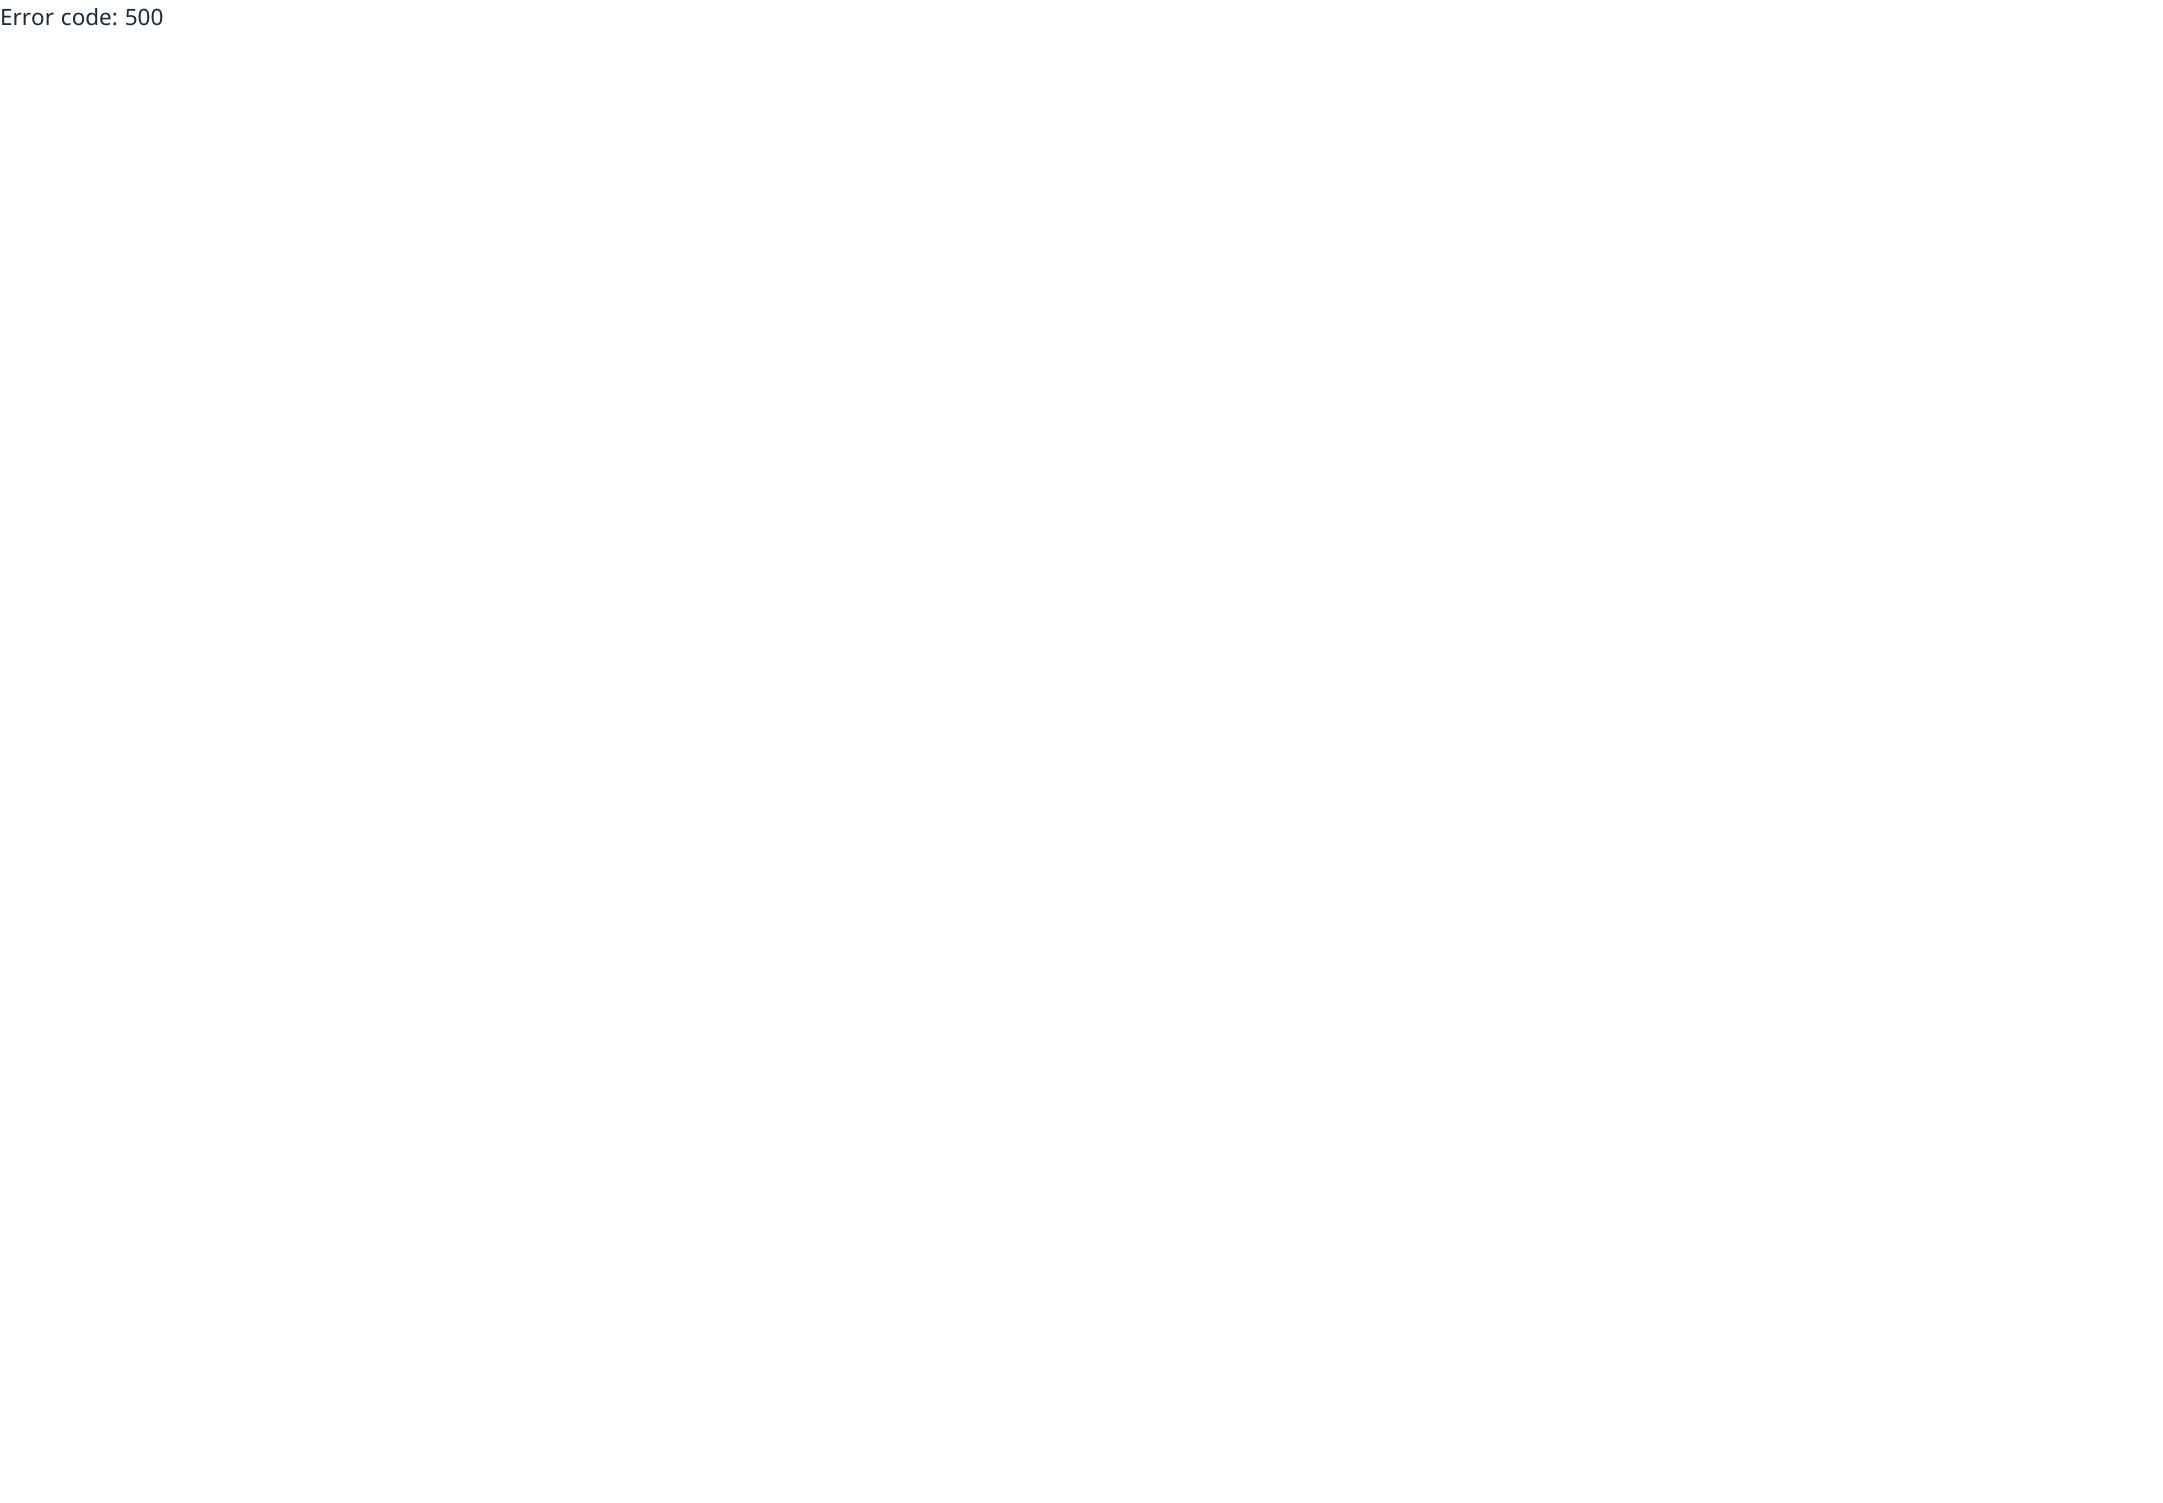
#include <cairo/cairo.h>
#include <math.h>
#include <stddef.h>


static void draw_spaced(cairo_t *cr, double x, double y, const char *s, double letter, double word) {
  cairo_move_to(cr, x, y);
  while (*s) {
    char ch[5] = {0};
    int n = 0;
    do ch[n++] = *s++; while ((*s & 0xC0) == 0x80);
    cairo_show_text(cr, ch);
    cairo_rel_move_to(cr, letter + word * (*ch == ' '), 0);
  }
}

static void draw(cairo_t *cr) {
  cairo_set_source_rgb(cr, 1, 1, 1);
  cairo_paint(cr);
  cairo_select_font_face(cr, "Noto Sans", CAIRO_FONT_SLANT_NORMAL, CAIRO_FONT_WEIGHT_NORMAL);
  cairo_set_font_size(cr, 22.5);
  cairo_set_source_rgb(cr, 31 / 255.0, 41 / 255.0, 55 / 255.0);
  draw_spaced(cr, 0, 25, "Error code: 500", 0, 1);
}

int main(void) {
  cairo_surface_t *surface = cairo_image_surface_create(CAIRO_FORMAT_RGB24, 2163, 1503);
  cairo_t *cr = cairo_create(surface);
  cairo_font_options_t *options = cairo_font_options_create();
  cairo_font_options_set_hint_metrics(options, CAIRO_HINT_METRICS_OFF);
  cairo_font_options_set_hint_style(options, CAIRO_HINT_STYLE_NONE);
  cairo_set_font_options(cr, options);
  cairo_set_miter_limit(cr, 4);
  draw(cr);
  cairo_surface_write_to_png(surface, "out.png");
  cairo_font_options_destroy(options);
  cairo_destroy(cr);
  cairo_surface_destroy(surface);
  return 0;
}
